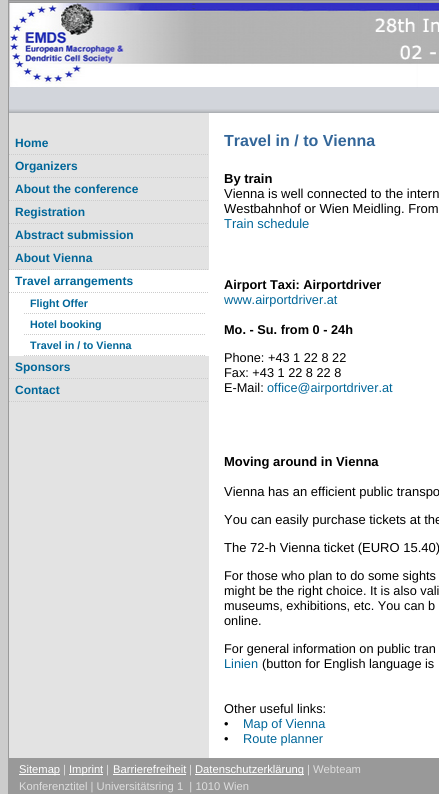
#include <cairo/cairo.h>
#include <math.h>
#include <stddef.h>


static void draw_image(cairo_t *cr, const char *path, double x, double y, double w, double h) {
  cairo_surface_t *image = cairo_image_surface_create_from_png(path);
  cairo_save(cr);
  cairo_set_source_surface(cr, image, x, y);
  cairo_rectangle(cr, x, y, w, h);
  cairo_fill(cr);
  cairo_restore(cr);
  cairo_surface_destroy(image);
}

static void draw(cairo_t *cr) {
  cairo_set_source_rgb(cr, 204 / 255.0, 204 / 255.0, 204 / 255.0);
  cairo_paint(cr);
  cairo_set_source_rgb(cr, 1, 1, 1);
  cairo_rectangle(cr, 209, 113, 230, 645);
  cairo_fill(cr);
  cairo_rectangle(cr, 8.5, 0.5, 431, 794);
  cairo_set_source_rgb(cr, 153 / 255.0, 153 / 255.0, 153 / 255.0);
  cairo_set_line_width(cr, 1);
  cairo_stroke(cr);
  draw_image(cr, "images/1.png", 9, 1, 430, 87);
  cairo_set_source_rgb(cr, 210 / 255.0, 213 / 255.0, 219 / 255.0);
  cairo_rectangle(cr, 9, 88, 430, 21);
  cairo_fill(cr);
  draw_image(cr, "images/2.png", 9, 109, 430, 4);
  cairo_set_source_rgb(cr, 227 / 255.0, 227 / 255.0, 227 / 255.0);
  cairo_rectangle(cr, 9, 113, 200, 645);
  cairo_fill(cr);
  cairo_new_path(cr);
  cairo_move_to(cr, 9, 154.5);
  cairo_line_to(cr, 209, 154.5);
  cairo_set_source_rgb(cr, 204 / 255.0, 204 / 255.0, 204 / 255.0);
  cairo_set_dash(cr, (double[]){1, 1}, 2, 0);
  cairo_stroke(cr);
  cairo_new_path(cr);
  cairo_move_to(cr, 9, 177.5);
  cairo_line_to(cr, 209, 177.5);
  cairo_stroke(cr);
  cairo_new_path(cr);
  cairo_move_to(cr, 9, 200.5);
  cairo_line_to(cr, 209, 200.5);
  cairo_stroke(cr);
  cairo_new_path(cr);
  cairo_move_to(cr, 9, 223.5);
  cairo_line_to(cr, 209, 223.5);
  cairo_stroke(cr);
  cairo_new_path(cr);
  cairo_move_to(cr, 9, 246.5);
  cairo_line_to(cr, 209, 246.5);
  cairo_stroke(cr);
  cairo_new_path(cr);
  cairo_move_to(cr, 9, 269.5);
  cairo_line_to(cr, 209, 269.5);
  cairo_stroke(cr);
  cairo_set_source_rgb(cr, 1, 1, 1);
  cairo_rectangle(cr, 9, 270, 200, 86);
  cairo_fill(cr);
  cairo_new_path(cr);
  cairo_move_to(cr, 9, 292.5);
  cairo_line_to(cr, 209, 292.5);
  cairo_set_source_rgb(cr, 204 / 255.0, 204 / 255.0, 204 / 255.0);
  cairo_stroke(cr);
  cairo_new_path(cr);
  cairo_move_to(cr, 24, 313.5);
  cairo_line_to(cr, 205, 313.5);
  cairo_stroke(cr);
  cairo_new_path(cr);
  cairo_move_to(cr, 24, 334.5);
  cairo_line_to(cr, 205, 334.5);
  cairo_stroke(cr);
  cairo_new_path(cr);
  cairo_move_to(cr, 24, 355.5);
  cairo_line_to(cr, 205, 355.5);
  cairo_stroke(cr);
  cairo_new_path(cr);
  cairo_move_to(cr, 9, 378.5);
  cairo_line_to(cr, 209, 378.5);
  cairo_stroke(cr);
  cairo_new_path(cr);
  cairo_move_to(cr, 9, 401.5);
  cairo_line_to(cr, 209, 401.5);
  cairo_stroke(cr);
  cairo_set_source_rgb(cr, 153 / 255.0, 153 / 255.0, 153 / 255.0);
  cairo_rectangle(cr, 9, 758, 430, 36);
  cairo_fill(cr);
  cairo_set_source_rgb(cr, 1, 1, 1);
  cairo_rectangle(cr, 19, 774, 41, 1);
  cairo_fill(cr);
  cairo_rectangle(cr, 69, 774, 34, 1);
  cairo_fill(cr);
  cairo_rectangle(cr, 113, 774, 73, 1);
  cairo_fill(cr);
  cairo_rectangle(cr, 195, 774, 109, 1);
  cairo_fill(cr);
  cairo_select_font_face(cr, "Liberation Sans", CAIRO_FONT_SLANT_NORMAL, CAIRO_FONT_WEIGHT_BOLD);
  cairo_set_font_size(cr, 12);
  cairo_set_source_rgb(cr, 0, 102 / 255.0, 153 / 255.0);
  cairo_move_to(cr, 15, 147);
  cairo_show_text(cr, "Home");
  cairo_move_to(cr, 15, 170);
  cairo_show_text(cr, "Organizers");
  cairo_move_to(cr, 15, 193);
  cairo_show_text(cr, "About the conference");
  cairo_move_to(cr, 15, 216);
  cairo_show_text(cr, "Registration");
  cairo_move_to(cr, 15, 239);
  cairo_show_text(cr, "Abstract submission");
  cairo_move_to(cr, 15, 262);
  cairo_show_text(cr, "About Vienna");
  cairo_move_to(cr, 15, 285);
  cairo_show_text(cr, "Travel arrangements");
  cairo_set_font_size(cr, 10.75);
  cairo_move_to(cr, 30, 307);
  cairo_show_text(cr, "Flight Offer");
  cairo_move_to(cr, 30, 328);
  cairo_show_text(cr, "Hotel booking");
  cairo_move_to(cr, 30, 349);
  cairo_show_text(cr, "Travel in / to Vienna");
  cairo_set_font_size(cr, 12);
  cairo_move_to(cr, 15, 371);
  cairo_show_text(cr, "Sponsors");
  cairo_move_to(cr, 15, 394);
  cairo_show_text(cr, "Contact");
  cairo_set_font_size(cr, 16);
  cairo_set_source_rgb(cr, 51 / 255.0, 102 / 255.0, 153 / 255.0);
  cairo_move_to(cr, 224, 146);
  cairo_show_text(cr, "Travel in / to Vienna");
  cairo_set_font_size(cr, 13);
  cairo_set_source_rgb(cr, 0, 0, 0);
  cairo_move_to(cr, 224, 183);
  cairo_show_text(cr, "By train");
  cairo_select_font_face(cr, "Liberation Sans", CAIRO_FONT_SLANT_NORMAL, CAIRO_FONT_WEIGHT_NORMAL);
  cairo_move_to(cr, 224, 198);
  cairo_show_text(cr, "Vienna is well connected to the intern");
  cairo_move_to(cr, 224, 213);
  cairo_show_text(cr, "Westbahnhof or Wien Meidling. From");
  cairo_set_source_rgb(cr, 0, 102 / 255.0, 153 / 255.0);
  cairo_move_to(cr, 224, 228);
  cairo_show_text(cr, "Train schedule");
  cairo_select_font_face(cr, "Liberation Sans", CAIRO_FONT_SLANT_NORMAL, CAIRO_FONT_WEIGHT_BOLD);
  cairo_set_font_size(cr, 12.75);
  cairo_set_source_rgb(cr, 0, 0, 0);
  cairo_move_to(cr, 224, 289);
  cairo_show_text(cr, "Airport Taxi: Airportdriver");
  cairo_select_font_face(cr, "Liberation Sans", CAIRO_FONT_SLANT_NORMAL, CAIRO_FONT_WEIGHT_NORMAL);
  cairo_set_source_rgb(cr, 0, 102 / 255.0, 153 / 255.0);
  cairo_move_to(cr, 224, 304);
  cairo_show_text(cr, "www.airportdriver.at");
  cairo_select_font_face(cr, "Liberation Sans", CAIRO_FONT_SLANT_NORMAL, CAIRO_FONT_WEIGHT_BOLD);
  cairo_set_source_rgb(cr, 0, 0, 0);
  cairo_move_to(cr, 224, 334);
  cairo_show_text(cr, "Mo. - Su. from 0 - 24h");
  cairo_select_font_face(cr, "Liberation Sans", CAIRO_FONT_SLANT_NORMAL, CAIRO_FONT_WEIGHT_NORMAL);
  cairo_move_to(cr, 224, 362);
  cairo_show_text(cr, "Phone: +43 1 22 8 22");
  cairo_move_to(cr, 224, 377);
  cairo_show_text(cr, "Fax: +43 1 22 8 22 8");
  cairo_move_to(cr, 224, 392);
  cairo_show_text(cr, "E-Mail:");
  cairo_set_source_rgb(cr, 0, 102 / 255.0, 153 / 255.0);
  cairo_move_to(cr, 267, 392);
  cairo_show_text(cr, "office@airportdriver.at");
  cairo_select_font_face(cr, "Liberation Sans", CAIRO_FONT_SLANT_NORMAL, CAIRO_FONT_WEIGHT_BOLD);
  cairo_set_font_size(cr, 13);
  cairo_set_source_rgb(cr, 0, 0, 0);
  cairo_move_to(cr, 224, 466);
  cairo_show_text(cr, "Moving around in Vienna");
  cairo_select_font_face(cr, "Liberation Sans", CAIRO_FONT_SLANT_NORMAL, CAIRO_FONT_WEIGHT_NORMAL);
  cairo_move_to(cr, 224, 496);
  cairo_show_text(cr, "Vienna has an efficient public transpo");
  cairo_move_to(cr, 224, 524);
  cairo_show_text(cr, "You can easily purchase tickets at the");
  cairo_move_to(cr, 224, 552);
  cairo_show_text(cr, "The 72-h Vienna ticket (EURO 15.40)");
  cairo_set_font_size(cr, 12.75);
  cairo_move_to(cr, 224, 580);
  cairo_show_text(cr, "For those who plan to do some sights");
  cairo_move_to(cr, 224, 595);
  cairo_show_text(cr, "might be the right choice. It is also vali");
  cairo_move_to(cr, 224, 610);
  cairo_show_text(cr, "museums, exhibitions, etc. You can b");
  cairo_move_to(cr, 224, 625);
  cairo_show_text(cr, "online.");
  cairo_move_to(cr, 224, 653);
  cairo_show_text(cr, "For general information on public tran");
  cairo_set_source_rgb(cr, 0, 102 / 255.0, 153 / 255.0);
  cairo_move_to(cr, 224, 668);
  cairo_show_text(cr, "Linien");
  cairo_set_source_rgb(cr, 0, 0, 0);
  cairo_move_to(cr, 262, 668);
  cairo_show_text(cr, "(button for English language is");
  cairo_move_to(cr, 224, 713);
  cairo_show_text(cr, "Other useful links:");
  cairo_move_to(cr, 224, 728);
  cairo_show_text(cr, "•");
  cairo_set_source_rgb(cr, 0, 102 / 255.0, 153 / 255.0);
  cairo_move_to(cr, 243, 728);
  cairo_show_text(cr, "Map of Vienna");
  cairo_set_source_rgb(cr, 0, 0, 0);
  cairo_move_to(cr, 224, 743);
  cairo_show_text(cr, "•");
  cairo_set_source_rgb(cr, 0, 102 / 255.0, 153 / 255.0);
  cairo_move_to(cr, 243, 743);
  cairo_show_text(cr, "Route planner");
  cairo_set_font_size(cr, 11.2);
  cairo_set_source_rgb(cr, 1, 1, 1);
  cairo_move_to(cr, 19, 773);
  cairo_show_text(cr, "Sitemap");
  cairo_set_source_rgb(cr, 221 / 255.0, 221 / 255.0, 221 / 255.0);
  cairo_move_to(cr, 63, 773);
  cairo_show_text(cr, "|");
  cairo_set_source_rgb(cr, 1, 1, 1);
  cairo_move_to(cr, 69, 773);
  cairo_show_text(cr, "Imprint");
  cairo_set_source_rgb(cr, 221 / 255.0, 221 / 255.0, 221 / 255.0);
  cairo_move_to(cr, 106, 773);
  cairo_show_text(cr, "|");
  cairo_set_source_rgb(cr, 1, 1, 1);
  cairo_move_to(cr, 113, 773);
  cairo_show_text(cr, "Barrierefreiheit");
  cairo_set_source_rgb(cr, 221 / 255.0, 221 / 255.0, 221 / 255.0);
  cairo_move_to(cr, 189, 773);
  cairo_show_text(cr, "|");
  cairo_set_source_rgb(cr, 1, 1, 1);
  cairo_move_to(cr, 195, 773);
  cairo_show_text(cr, "Datenschutzerklärung");
  cairo_set_source_rgb(cr, 221 / 255.0, 221 / 255.0, 221 / 255.0);
  cairo_move_to(cr, 307, 773);
  cairo_show_text(cr, "| Webteam");
  cairo_move_to(cr, 19, 790);
  cairo_show_text(cr, "Konferenztitel | Universitätsring 1  | 1010 Wien");
}

int main(void) {
  cairo_surface_t *surface = cairo_image_surface_create(CAIRO_FORMAT_RGB24, 439, 794);
  cairo_t *cr = cairo_create(surface);
  cairo_font_options_t *options = cairo_font_options_create();
  cairo_font_options_set_hint_metrics(options, CAIRO_HINT_METRICS_OFF);
  cairo_font_options_set_hint_style(options, CAIRO_HINT_STYLE_NONE);
  cairo_set_font_options(cr, options);
  cairo_set_miter_limit(cr, 4);
  draw(cr);
  cairo_surface_write_to_png(surface, "out.png");
  cairo_font_options_destroy(options);
  cairo_destroy(cr);
  cairo_surface_destroy(surface);
  return 0;
}
